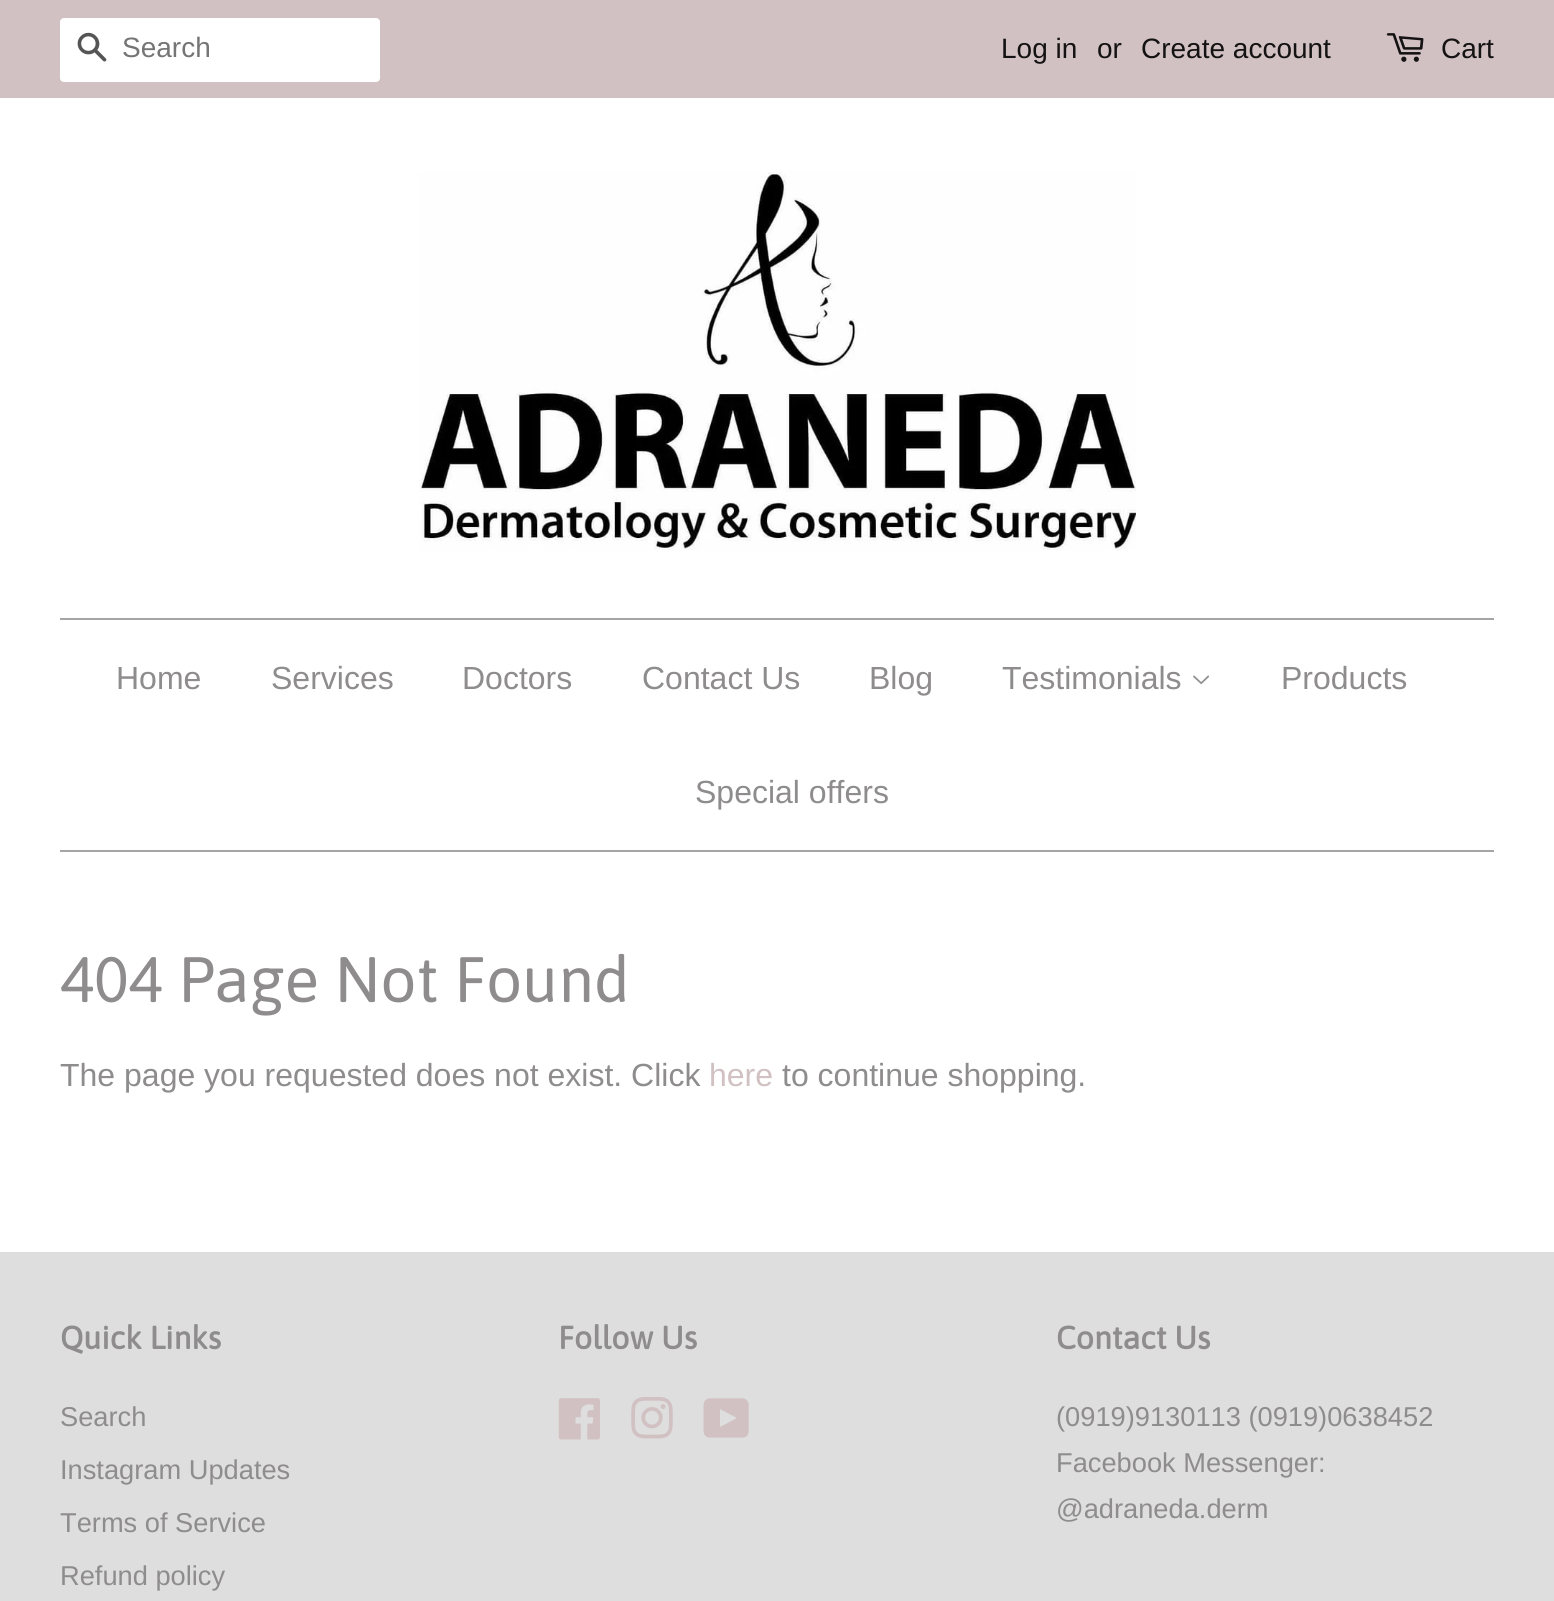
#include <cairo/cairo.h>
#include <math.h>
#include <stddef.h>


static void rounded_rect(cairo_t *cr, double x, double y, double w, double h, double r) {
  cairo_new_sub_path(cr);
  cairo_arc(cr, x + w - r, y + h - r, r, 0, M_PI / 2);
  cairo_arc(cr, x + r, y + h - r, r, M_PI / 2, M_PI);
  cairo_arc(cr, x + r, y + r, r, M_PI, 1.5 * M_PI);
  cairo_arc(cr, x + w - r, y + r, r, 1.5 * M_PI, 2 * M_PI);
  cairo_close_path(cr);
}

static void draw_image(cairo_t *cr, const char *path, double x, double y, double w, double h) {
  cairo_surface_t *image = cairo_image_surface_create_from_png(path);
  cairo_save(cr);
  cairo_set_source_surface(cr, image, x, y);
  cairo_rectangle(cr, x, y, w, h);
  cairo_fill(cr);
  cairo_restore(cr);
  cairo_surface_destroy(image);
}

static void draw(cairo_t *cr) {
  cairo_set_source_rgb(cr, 1, 1, 1);
  cairo_paint(cr);
  cairo_set_source_rgb(cr, 209 / 255.0, 193 / 255.0, 195 / 255.0);
  cairo_rectangle(cr, 0, 0, 1554, 98);
  cairo_fill(cr);
  cairo_set_source_rgb(cr, 1, 1, 1);
  rounded_rect(cr, 60, 18, 320, 64, 4);
  cairo_fill(cr);
  draw_image(cr, "images/1.png", 77, 32, 30, 30);
  draw_image(cr, "images/2.png", 1386, 33, 38, 29);
  draw_image(cr, "images/3.png", 419, 172, 717, 379);
  cairo_set_source_rgb(cr, 166 / 255.0, 165 / 255.0, 165 / 255.0);
  cairo_rectangle(cr, 60, 618, 1434, 2);
  cairo_fill(cr);
  cairo_rectangle(cr, 60, 850, 1434, 2);
  cairo_fill(cr);
  draw_image(cr, "images/4.png", 1193, 675, 16, 10);
  cairo_set_source_rgb(cr, 222 / 255.0, 222 / 255.0, 222 / 255.0);
  cairo_rectangle(cr, 0, 1252, 1554, 349);
  cairo_fill(cr);
  draw_image(cr, "images/5.png", 558, 1398, 42, 42);
  draw_image(cr, "images/6.png", 631, 1397, 42, 42);
  draw_image(cr, "images/7.png", 703, 1398, 46, 40);
  cairo_select_font_face(cr, "Liberation Sans", CAIRO_FONT_SLANT_NORMAL, CAIRO_FONT_WEIGHT_NORMAL);
  cairo_set_font_size(cr, 28);
  cairo_set_source_rgb(cr, 117 / 255.0, 117 / 255.0, 117 / 255.0);
  cairo_move_to(cr, 122, 57);
  cairo_show_text(cr, "Search");
  cairo_set_source_rgb(cr, 20 / 255.0, 18 / 255.0, 18 / 255.0);
  cairo_move_to(cr, 1001, 58);
  cairo_show_text(cr, "Log in");
  cairo_move_to(cr, 1097, 58);
  cairo_show_text(cr, "or");
  cairo_move_to(cr, 1141, 58);
  cairo_show_text(cr, "Create account");
  cairo_move_to(cr, 1441, 58);
  cairo_show_text(cr, "Cart");
  cairo_set_font_size(cr, 32);
  cairo_set_source_rgb(cr, 142 / 255.0, 140 / 255.0, 140 / 255.0);
  cairo_move_to(cr, 116, 689);
  cairo_show_text(cr, "Home");
  cairo_move_to(cr, 271, 689);
  cairo_show_text(cr, "Services");
  cairo_move_to(cr, 462, 689);
  cairo_show_text(cr, "Doctors");
  cairo_move_to(cr, 642, 689);
  cairo_show_text(cr, "Contact Us");
  cairo_move_to(cr, 869, 689);
  cairo_show_text(cr, "Blog");
  cairo_move_to(cr, 1002, 689);
  cairo_show_text(cr, "Testimonials");
  cairo_move_to(cr, 1281, 689);
  cairo_show_text(cr, "Products");
  cairo_move_to(cr, 695, 803);
  cairo_show_text(cr, "Special offers");
  cairo_select_font_face(cr, "Asap", CAIRO_FONT_SLANT_NORMAL, CAIRO_FONT_WEIGHT_NORMAL);
  cairo_set_font_size(cr, 64);
  cairo_move_to(cr, 60, 1002);
  cairo_show_text(cr, "404 Page Not Found");
  cairo_select_font_face(cr, "Liberation Sans", CAIRO_FONT_SLANT_NORMAL, CAIRO_FONT_WEIGHT_NORMAL);
  cairo_set_font_size(cr, 32);
  cairo_move_to(cr, 60, 1086);
  cairo_show_text(cr, "The page you requested does not exist. Click");
  cairo_set_source_rgb(cr, 209 / 255.0, 193 / 255.0, 195 / 255.0);
  cairo_move_to(cr, 709, 1086);
  cairo_show_text(cr, "here");
  cairo_set_source_rgb(cr, 142 / 255.0, 140 / 255.0, 140 / 255.0);
  cairo_move_to(cr, 782, 1086);
  cairo_show_text(cr, "to continue shopping.");
  cairo_select_font_face(cr, "Asap", CAIRO_FONT_SLANT_NORMAL, CAIRO_FONT_WEIGHT_BOLD);
  cairo_move_to(cr, 60, 1349);
  cairo_show_text(cr, "Quick Links");
  cairo_select_font_face(cr, "Liberation Sans", CAIRO_FONT_SLANT_NORMAL, CAIRO_FONT_WEIGHT_NORMAL);
  cairo_set_font_size(cr, 27.25);
  cairo_move_to(cr, 60, 1426);
  cairo_show_text(cr, "Search");
  cairo_move_to(cr, 60, 1479);
  cairo_show_text(cr, "Instagram Updates");
  cairo_move_to(cr, 60, 1532);
  cairo_show_text(cr, "Terms of Service");
  cairo_move_to(cr, 60, 1585);
  cairo_show_text(cr, "Refund policy");
  cairo_select_font_face(cr, "Asap", CAIRO_FONT_SLANT_NORMAL, CAIRO_FONT_WEIGHT_BOLD);
  cairo_set_font_size(cr, 32);
  cairo_move_to(cr, 558, 1349);
  cairo_show_text(cr, "Follow Us");
  cairo_move_to(cr, 1056, 1349);
  cairo_show_text(cr, "Contact Us");
  cairo_select_font_face(cr, "Liberation Sans", CAIRO_FONT_SLANT_NORMAL, CAIRO_FONT_WEIGHT_NORMAL);
  cairo_set_font_size(cr, 27.25);
  cairo_move_to(cr, 1056, 1426);
  cairo_show_text(cr, "(0919)9130113 (0919)0638452");
  cairo_move_to(cr, 1056, 1472);
  cairo_show_text(cr, "Facebook Messenger:");
  cairo_move_to(cr, 1056, 1518);
  cairo_show_text(cr, "@adraneda.derm");
}

int main(void) {
  cairo_surface_t *surface = cairo_image_surface_create(CAIRO_FORMAT_RGB24, 1554, 1601);
  cairo_t *cr = cairo_create(surface);
  cairo_font_options_t *options = cairo_font_options_create();
  cairo_font_options_set_hint_metrics(options, CAIRO_HINT_METRICS_OFF);
  cairo_font_options_set_hint_style(options, CAIRO_HINT_STYLE_NONE);
  cairo_set_font_options(cr, options);
  cairo_set_miter_limit(cr, 4);
  draw(cr);
  cairo_surface_write_to_png(surface, "out.png");
  cairo_font_options_destroy(options);
  cairo_destroy(cr);
  cairo_surface_destroy(surface);
  return 0;
}
